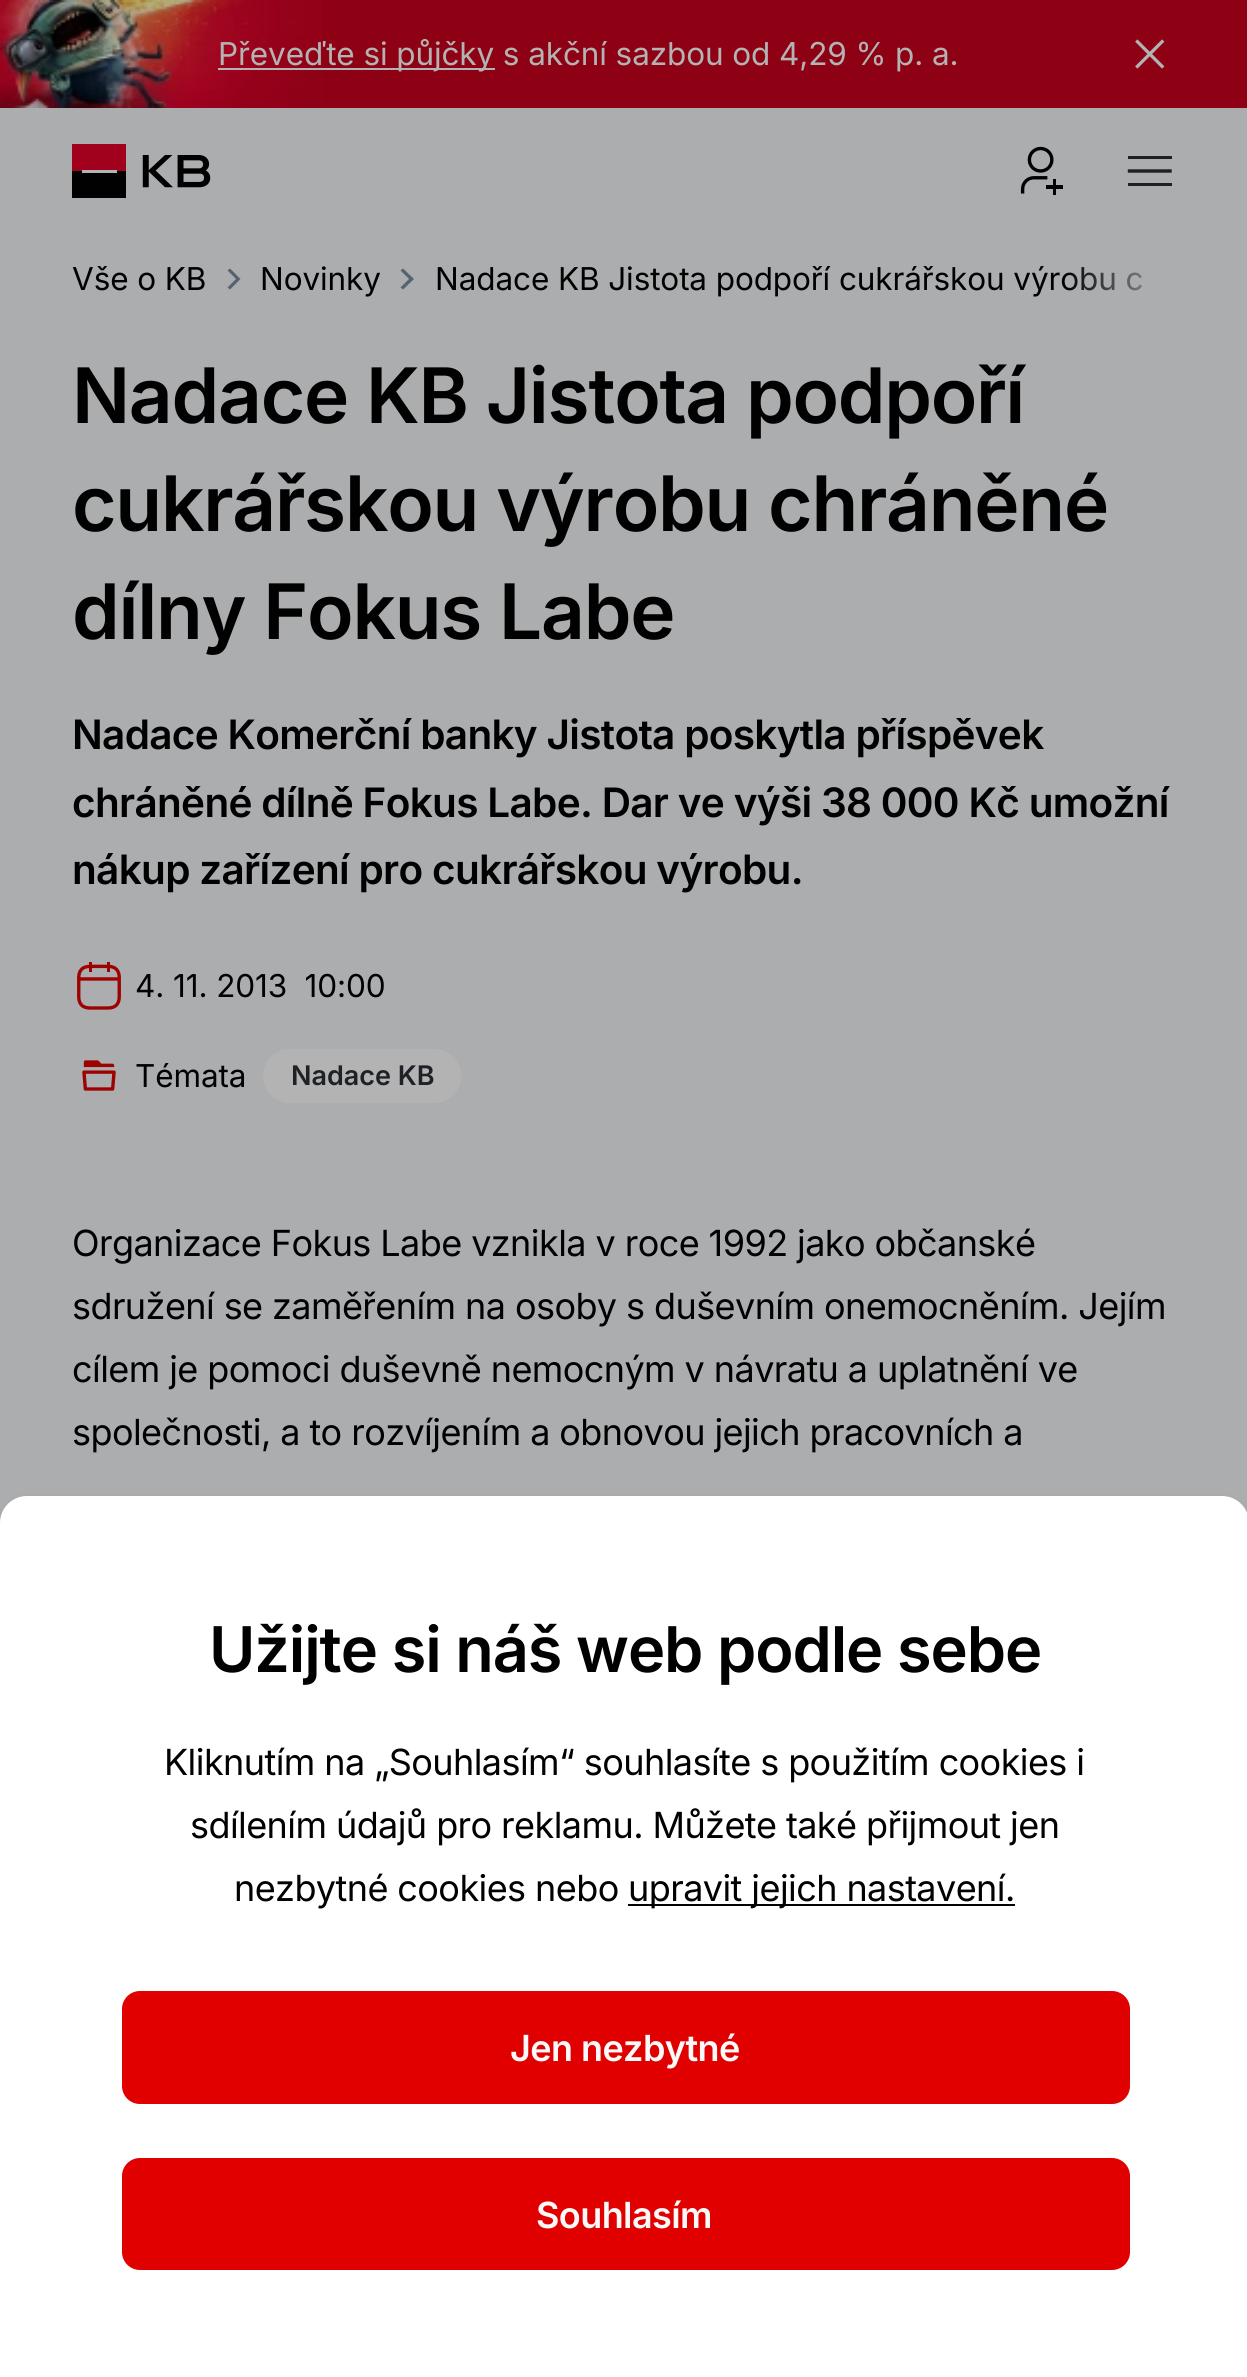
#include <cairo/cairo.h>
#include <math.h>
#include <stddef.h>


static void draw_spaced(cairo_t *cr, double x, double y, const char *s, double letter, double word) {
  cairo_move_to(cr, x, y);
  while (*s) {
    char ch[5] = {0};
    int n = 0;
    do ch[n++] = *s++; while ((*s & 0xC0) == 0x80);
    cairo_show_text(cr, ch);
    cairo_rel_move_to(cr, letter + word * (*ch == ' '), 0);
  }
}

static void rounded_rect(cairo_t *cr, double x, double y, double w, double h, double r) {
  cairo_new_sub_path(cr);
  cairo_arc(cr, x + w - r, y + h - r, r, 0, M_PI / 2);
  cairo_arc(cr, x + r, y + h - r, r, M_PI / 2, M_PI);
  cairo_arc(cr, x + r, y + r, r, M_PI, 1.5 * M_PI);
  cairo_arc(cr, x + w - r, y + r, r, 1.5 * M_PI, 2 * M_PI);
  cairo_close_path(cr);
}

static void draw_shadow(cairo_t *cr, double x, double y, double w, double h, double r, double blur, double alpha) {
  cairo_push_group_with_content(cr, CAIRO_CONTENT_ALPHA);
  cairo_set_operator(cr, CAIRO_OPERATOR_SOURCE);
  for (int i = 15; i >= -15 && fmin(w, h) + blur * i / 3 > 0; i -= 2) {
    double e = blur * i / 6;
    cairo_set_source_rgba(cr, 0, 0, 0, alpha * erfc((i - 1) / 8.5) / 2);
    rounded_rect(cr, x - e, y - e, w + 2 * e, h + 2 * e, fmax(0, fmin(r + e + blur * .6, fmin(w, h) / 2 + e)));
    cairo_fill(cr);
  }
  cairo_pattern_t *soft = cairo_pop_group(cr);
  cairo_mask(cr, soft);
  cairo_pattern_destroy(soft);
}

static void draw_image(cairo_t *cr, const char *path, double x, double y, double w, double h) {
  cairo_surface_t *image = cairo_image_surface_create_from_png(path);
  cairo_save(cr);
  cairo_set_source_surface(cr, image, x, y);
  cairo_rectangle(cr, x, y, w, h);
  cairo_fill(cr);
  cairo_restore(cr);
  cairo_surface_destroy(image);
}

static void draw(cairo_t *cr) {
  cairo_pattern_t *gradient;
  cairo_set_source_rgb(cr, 171 / 255.0, 173 / 255.0, 175 / 255.0);
  cairo_paint(cr);
  cairo_set_source_rgb(cr, 142 / 255.0, 1 / 255.0, 20 / 255.0);
  cairo_rectangle(cr, 323, 0, 924, 108);
  cairo_fill(cr);
  draw_image(cr, "images/1.png", 0, 0, 323, 108);
  cairo_set_source_rgb(cr, 179 / 255.0, 179 / 255.0, 179 / 255.0);
  cairo_rectangle(cr, 218, 68, 277, 2);
  cairo_fill(cr);
  draw_image(cr, "images/2.png", 1135, 39, 30, 30);
  draw_image(cr, "images/3.png", 72, 144, 139, 54);
  draw_image(cr, "images/4.png", 1020, 146, 43, 49);
  cairo_set_source_rgb(cr, 29 / 255.0, 32 / 255.0, 36 / 255.0);
  cairo_rectangle(cr, 1128, 156, 44, 3);
  cairo_fill(cr);
  cairo_new_path(cr);
  cairo_move_to(cr, 1129.5, 171);
  cairo_line_to(cr, 1170, 171);
  cairo_set_line_width(cr, 3.4);
  cairo_set_line_cap(cr, CAIRO_LINE_CAP_SQUARE);
  cairo_stroke(cr);
  cairo_rectangle(cr, 1128, 183, 44, 3);
  cairo_fill(cr);
  cairo_set_source_rgb(cr, 87 / 255.0, 98 / 255.0, 111 / 255.0);
  cairo_new_path(cr);
  cairo_move_to(cr, 236, 279);
  cairo_line_to(cr, 227.5, 270.5);
  cairo_line_to(cr, 230, 268.5);
  cairo_line_to(cr, 240.5, 279);
  cairo_line_to(cr, 230, 289.5);
  cairo_line_to(cr, 227.5, 287.5);
  cairo_close_path(cr);
  cairo_fill(cr);
  cairo_new_path(cr);
  cairo_move_to(cr, 409, 279);
  cairo_line_to(cr, 400.5, 270.5);
  cairo_line_to(cr, 403, 268.5);
  cairo_line_to(cr, 414, 279);
  cairo_line_to(cr, 403, 289.5);
  cairo_line_to(cr, 400.5, 287.5);
  cairo_close_path(cr);
  cairo_fill(cr);
  draw_image(cr, "images/5.png", 77, 962, 44, 48);
  draw_image(cr, "images/6.png", 82, 1060, 34, 31);
  cairo_set_source_rgb(cr, 179 / 255.0, 179 / 255.0, 179 / 255.0);
  rounded_rect(cr, 263, 1049, 198, 54, 27);
  cairo_fill(cr);
  cairo_set_source_rgb(cr, 0, 0, 0);
  draw_shadow(cr, 0, 1499, 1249, 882, 27, 3.5, 0.1);
  cairo_set_source_rgb(cr, 1, 1, 1);
  cairo_new_path(cr);
  cairo_move_to(cr, 27, 1496);
  cairo_line_to(cr, 1222, 1496);
  cairo_curve_to(cr, 1237, 1496, 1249, 1508, 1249, 1523);
  cairo_line_to(cr, 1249, 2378);
  cairo_line_to(cr, 0, 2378);
  cairo_line_to(cr, 0, 1523);
  cairo_curve_to(cr, 0, 1508, 12, 1496, 27, 1496);
  cairo_close_path(cr);
  cairo_fill(cr);
  cairo_set_source_rgb(cr, 2 / 255.0, 2 / 255.0, 3 / 255.0);
  cairo_rectangle(cr, 628, 1904, 387, 2);
  cairo_fill(cr);
  cairo_set_source_rgb(cr, 224 / 255.0, 0, 0);
  rounded_rect(cr, 123, 1992, 1006, 111, 17);
  cairo_fill_preserve(cr);
  cairo_set_line_width(cr, 2);
  cairo_set_line_cap(cr, CAIRO_LINE_CAP_BUTT);
  cairo_stroke(cr);
  rounded_rect(cr, 123, 2159, 1006, 110, 17);
  cairo_fill_preserve(cr);
  cairo_stroke(cr);
  cairo_select_font_face(cr, "Inter", CAIRO_FONT_SLANT_NORMAL, CAIRO_FONT_WEIGHT_NORMAL);
  cairo_set_font_size(cr, 31.5);
  cairo_set_source_rgb(cr, 179 / 255.0, 179 / 255.0, 179 / 255.0);
  draw_spaced(cr, 218, 65, "Převeďte si půjčky s akční sazbou od 4,29 % p. a.", -0.1, 0);
  cairo_set_source_rgb(cr, 1 / 255.0, 1 / 255.0, 1 / 255.0);
  draw_spaced(cr, 72, 290, "Vše o KB", -0.1, 0);
  draw_spaced(cr, 260, 290, "Novinky", -0.1, 0);
  draw_spaced(cr, 435, 290, "Nadace KB Jistota podpoří cukrářskou výrobu c", -0.1, 0);
  gradient = cairo_pattern_create_linear(1177, 279, 1064, 279);
  cairo_pattern_add_color_stop_rgba(gradient, 0, 171 / 255.0, 173 / 255.0, 175 / 255.0, 1);
  cairo_pattern_add_color_stop_rgba(gradient, 1, 171 / 255.0, 173 / 255.0, 175 / 255.0, 0);
  cairo_set_source(cr, gradient);
  cairo_pattern_destroy(gradient);
  cairo_rectangle(cr, 1066, 267, 76, 24);
  cairo_fill(cr);
  cairo_select_font_face(cr, "Inter SemiBold", CAIRO_FONT_SLANT_NORMAL, CAIRO_FONT_WEIGHT_NORMAL);
  cairo_set_font_size(cr, 76.5);
  cairo_set_source_rgb(cr, 1 / 255.0, 1 / 255.0, 1 / 255.0);
  draw_spaced(cr, 72, 423, "Nadace KB Jistota podpoří", -1.25, 0);
  draw_spaced(cr, 72, 531, "cukrářskou výrobu chráněné", -1.25, 0);
  draw_spaced(cr, 72, 639, "dílny Fokus Labe", -1.25, 0);
  cairo_set_font_size(cr, 40.5);
  draw_spaced(cr, 72, 749, "Nadace Komerční banky Jistota poskytla příspěvek", -0.68, 0);
  draw_spaced(cr, 72, 817, "chráněné dílně Fokus Labe. Dar ve výši 38 000 Kč umožní", -0.68, 0);
  draw_spaced(cr, 72, 884, "nákup zařízení pro cukrářskou výrobu.", -0.68, 0);
  cairo_select_font_face(cr, "Inter", CAIRO_FONT_SLANT_NORMAL, CAIRO_FONT_WEIGHT_NORMAL);
  cairo_set_font_size(cr, 31.5);
  draw_spaced(cr, 135, 997, "4. 11. 2013  10:00", -0.1, 0);
  draw_spaced(cr, 135, 1087, "Témata", -0.1, 0);
  cairo_select_font_face(cr, "Inter SemiBold", CAIRO_FONT_SLANT_NORMAL, CAIRO_FONT_WEIGHT_NORMAL);
  cairo_set_font_size(cr, 27);
  cairo_set_source_rgb(cr, 30 / 255.0, 34 / 255.0, 39 / 255.0);
  cairo_move_to(cr, 291, 1085);
  cairo_show_text(cr, "Nadace KB");
  cairo_select_font_face(cr, "Inter", CAIRO_FONT_SLANT_NORMAL, CAIRO_FONT_WEIGHT_NORMAL);
  cairo_set_font_size(cr, 36);
  cairo_set_source_rgb(cr, 1 / 255.0, 1 / 255.0, 1 / 255.0);
  draw_spaced(cr, 72, 1256, "Organizace Fokus Labe vznikla v roce 1992 jako občanské", -0.58, 0);
  draw_spaced(cr, 72, 1319, "sdružení se zaměřením na osoby s duševním onemocněním. Jejím", -0.58, 0);
  draw_spaced(cr, 72, 1382, "cílem je pomoci duševně nemocným v návratu a uplatnění ve", -0.58, 0);
  draw_spaced(cr, 72, 1445, "společnosti, a to rozvíjením a obnovou jejich pracovních a", -0.58, 0);
  cairo_select_font_face(cr, "Inter SemiBold", CAIRO_FONT_SLANT_NORMAL, CAIRO_FONT_WEIGHT_NORMAL);
  cairo_set_font_size(cr, 63);
  draw_spaced(cr, 209, 1672, "Užijte si náš web podle sebe", -1.1, 0);
  cairo_select_font_face(cr, "Inter", CAIRO_FONT_SLANT_NORMAL, CAIRO_FONT_WEIGHT_NORMAL);
  cairo_set_font_size(cr, 36);
  draw_spaced(cr, 164, 1775, "Kliknutím na „Souhlasím“ souhlasíte s použitím cookies i", -0.58, 0);
  draw_spaced(cr, 190, 1838, "sdílením údajů pro reklamu. Můžete také přijmout jen", -0.58, 0);
  draw_spaced(cr, 234, 1901, "nezbytné cookies nebo", -0.58, 0);
  draw_spaced(cr, 628, 1901, "upravit jejich nastavení.", -0.58, 0);
  cairo_select_font_face(cr, "Inter SemiBold", CAIRO_FONT_SLANT_NORMAL, CAIRO_FONT_WEIGHT_NORMAL);
  cairo_set_source_rgb(cr, 249 / 255.0, 249 / 255.0, 249 / 255.0);
  draw_spaced(cr, 510, 2061, "Jen nezbytné", -0.58, 0);
  draw_spaced(cr, 536, 2228, "Souhlasím", -0.58, 0);
}

int main(void) {
  cairo_surface_t *surface = cairo_image_surface_create(CAIRO_FORMAT_RGB24, 1247, 2377);
  cairo_t *cr = cairo_create(surface);
  cairo_font_options_t *options = cairo_font_options_create();
  cairo_font_options_set_hint_metrics(options, CAIRO_HINT_METRICS_OFF);
  cairo_font_options_set_hint_style(options, CAIRO_HINT_STYLE_NONE);
  cairo_set_font_options(cr, options);
  cairo_set_miter_limit(cr, 4);
  draw(cr);
  cairo_surface_write_to_png(surface, "out.png");
  cairo_font_options_destroy(options);
  cairo_destroy(cr);
  cairo_surface_destroy(surface);
  return 0;
}
